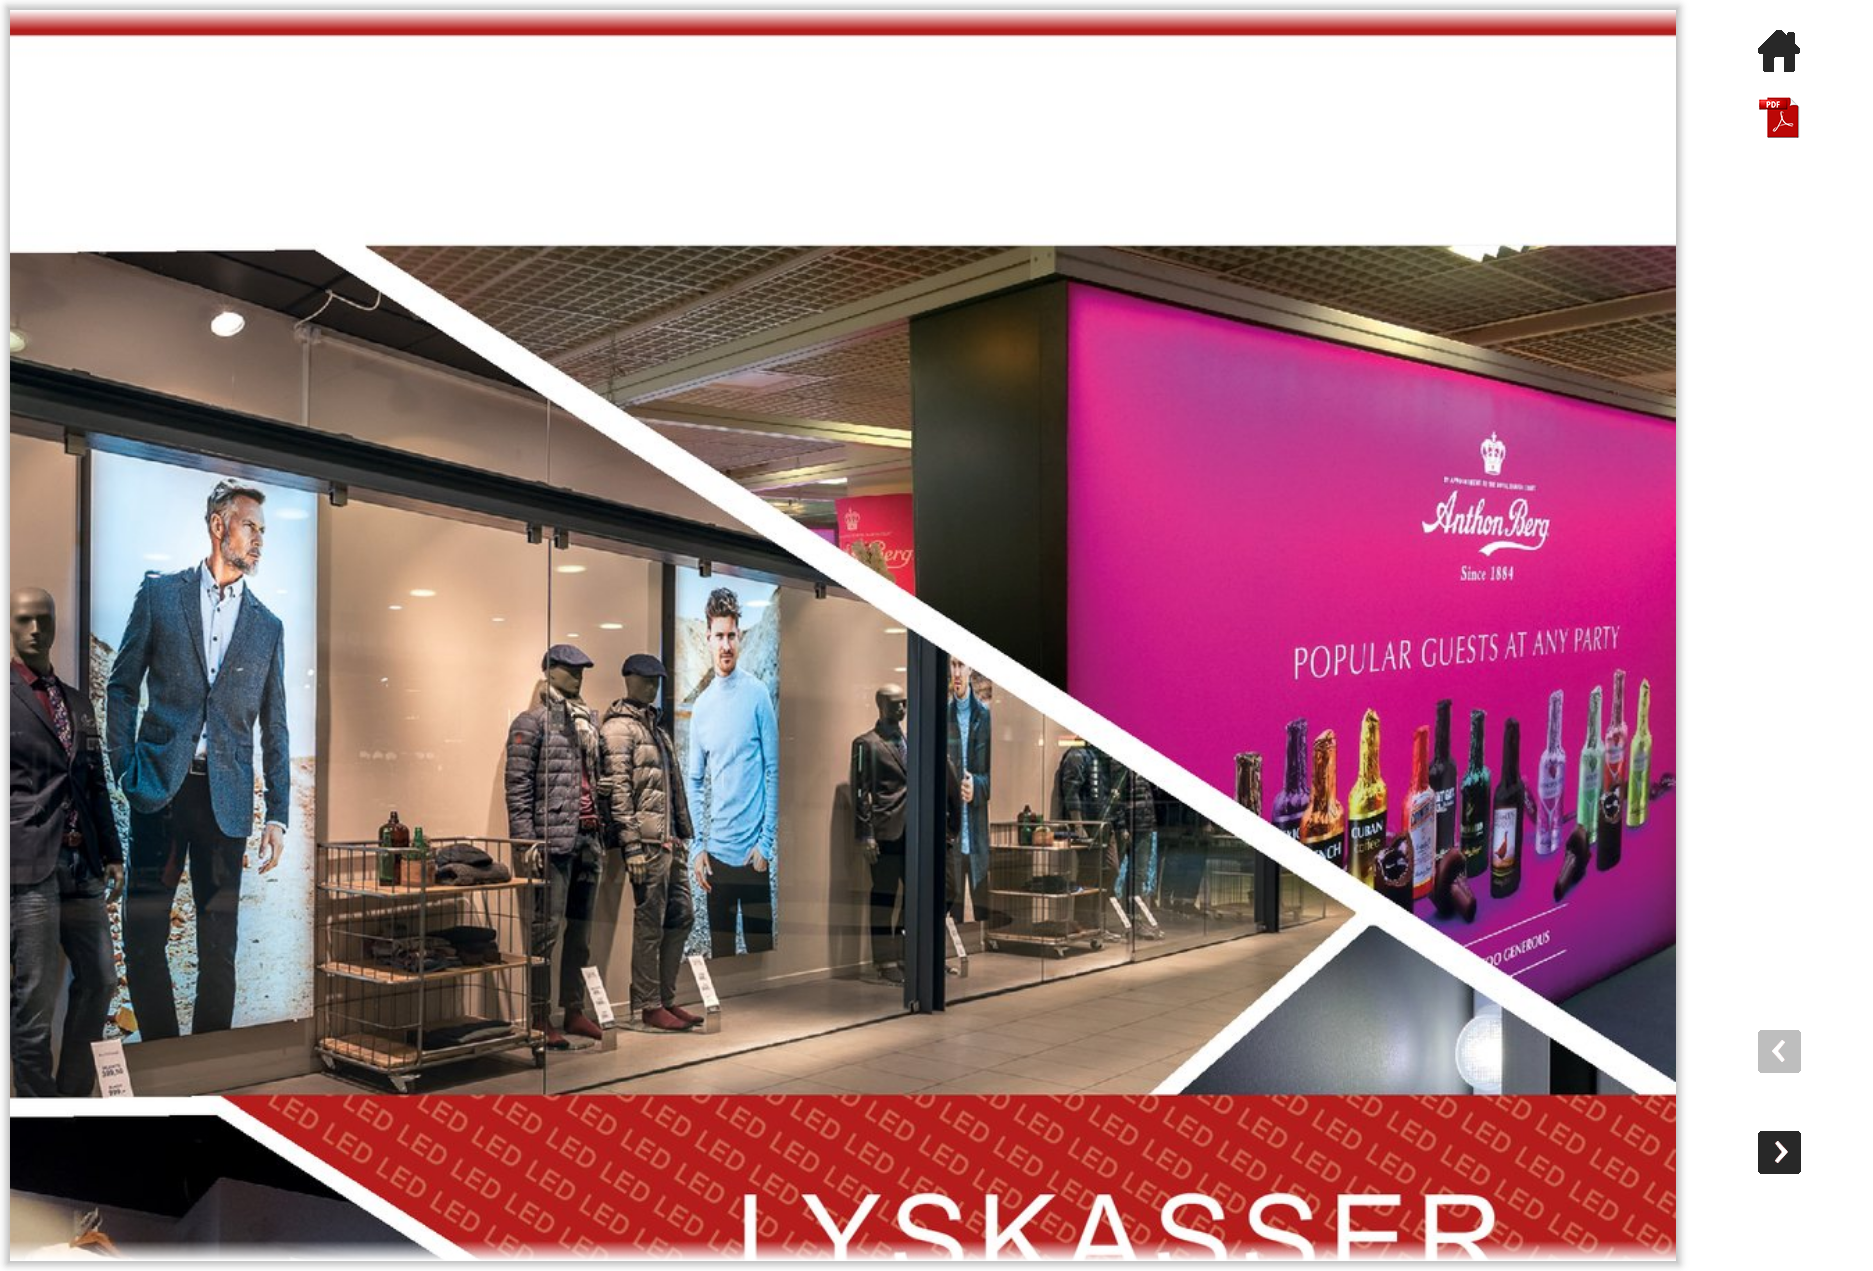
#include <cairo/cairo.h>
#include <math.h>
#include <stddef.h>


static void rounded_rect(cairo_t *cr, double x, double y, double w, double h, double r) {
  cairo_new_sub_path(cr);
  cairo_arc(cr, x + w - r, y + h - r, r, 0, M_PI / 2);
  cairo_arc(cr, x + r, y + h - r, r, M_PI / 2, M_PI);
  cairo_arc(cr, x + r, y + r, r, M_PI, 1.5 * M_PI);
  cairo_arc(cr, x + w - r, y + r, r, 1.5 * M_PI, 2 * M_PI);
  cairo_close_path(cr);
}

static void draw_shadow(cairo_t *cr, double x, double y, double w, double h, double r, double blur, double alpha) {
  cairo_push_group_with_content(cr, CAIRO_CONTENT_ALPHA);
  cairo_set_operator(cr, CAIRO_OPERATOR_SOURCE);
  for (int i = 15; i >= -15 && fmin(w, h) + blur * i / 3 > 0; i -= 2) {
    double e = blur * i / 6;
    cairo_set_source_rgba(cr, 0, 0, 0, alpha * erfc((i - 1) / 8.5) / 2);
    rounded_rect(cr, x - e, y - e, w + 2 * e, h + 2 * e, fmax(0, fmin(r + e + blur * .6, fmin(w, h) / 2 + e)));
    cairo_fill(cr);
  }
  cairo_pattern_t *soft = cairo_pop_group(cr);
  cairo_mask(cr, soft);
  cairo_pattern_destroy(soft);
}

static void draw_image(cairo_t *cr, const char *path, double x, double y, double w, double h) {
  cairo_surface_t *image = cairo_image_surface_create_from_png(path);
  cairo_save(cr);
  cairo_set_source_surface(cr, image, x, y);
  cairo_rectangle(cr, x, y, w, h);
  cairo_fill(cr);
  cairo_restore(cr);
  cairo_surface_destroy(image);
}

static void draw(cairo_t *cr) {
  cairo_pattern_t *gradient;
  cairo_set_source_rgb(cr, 1, 1, 1);
  cairo_paint(cr);
  cairo_set_source_rgb(cr, 187 / 255.0, 187 / 255.0, 187 / 255.0);
  draw_shadow(cr, 6, 6, 1674, 1259, 0, 4, 1);
  gradient = cairo_pattern_create_linear(843, 10, 843, 30);
  cairo_pattern_add_color_stop_rgba(gradient, 0, 1, 1, 1, 1);
  cairo_pattern_add_color_stop_rgba(gradient, 1, 181 / 255.0, 29 / 255.0, 28 / 255.0, 1);
  cairo_set_source(cr, gradient);
  cairo_pattern_destroy(gradient);
  cairo_rectangle(cr, 10, 10, 1666, 20);
  cairo_fill(cr);
  draw_image(cr, "images/1.png", 10, 30, 1666, 1231);
  draw_image(cr, "images/2.png", 1758, 30, 42, 42);
  draw_image(cr, "images/3.png", 1759, 97, 41, 41);
  draw_image(cr, "images/4.png", 1758, 1030, 43, 43);
  draw_image(cr, "images/5.png", 1758, 1131, 43, 43);
}

int main(void) {
  cairo_surface_t *surface = cairo_image_surface_create(CAIRO_FORMAT_RGB24, 1873, 1271);
  cairo_t *cr = cairo_create(surface);
  cairo_font_options_t *options = cairo_font_options_create();
  cairo_font_options_set_hint_metrics(options, CAIRO_HINT_METRICS_OFF);
  cairo_font_options_set_hint_style(options, CAIRO_HINT_STYLE_NONE);
  cairo_set_font_options(cr, options);
  cairo_set_miter_limit(cr, 4);
  draw(cr);
  cairo_surface_write_to_png(surface, "out.png");
  cairo_font_options_destroy(options);
  cairo_destroy(cr);
  cairo_surface_destroy(surface);
  return 0;
}
